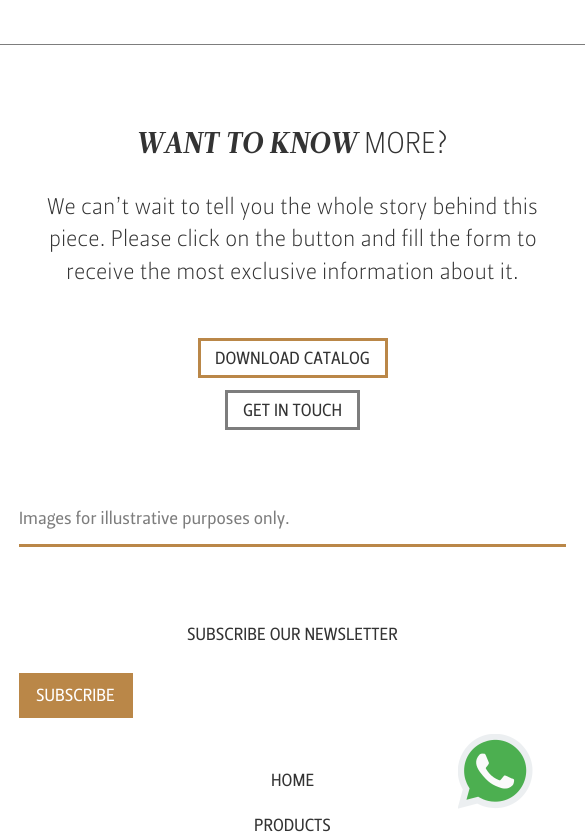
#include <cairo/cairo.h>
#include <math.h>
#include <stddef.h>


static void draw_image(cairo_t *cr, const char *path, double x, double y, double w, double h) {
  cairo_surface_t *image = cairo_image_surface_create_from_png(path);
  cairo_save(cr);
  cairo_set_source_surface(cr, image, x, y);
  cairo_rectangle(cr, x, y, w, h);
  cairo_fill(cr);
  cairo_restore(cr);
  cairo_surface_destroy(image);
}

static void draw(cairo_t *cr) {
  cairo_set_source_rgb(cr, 1, 1, 1);
  cairo_paint(cr);
  cairo_set_source_rgb(cr, 125 / 255.0, 125 / 255.0, 125 / 255.0);
  cairo_rectangle(cr, 0, 44, 585, 1);
  cairo_fill(cr);
  cairo_rectangle(cr, 199.5, 339.5, 187, 37);
  cairo_set_source_rgb(cr, 186 / 255.0, 135 / 255.0, 72 / 255.0);
  cairo_set_line_width(cr, 3);
  cairo_stroke(cr);
  cairo_rectangle(cr, 226.5, 391.5, 132, 37);
  cairo_set_source_rgb(cr, 125 / 255.0, 125 / 255.0, 125 / 255.0);
  cairo_stroke(cr);
  cairo_set_source_rgb(cr, 186 / 255.0, 135 / 255.0, 72 / 255.0);
  cairo_rectangle(cr, 19, 544, 547, 3);
  cairo_fill(cr);
  cairo_rectangle(cr, 19, 673, 114, 45);
  cairo_fill(cr);
  draw_image(cr, "images/1.png", 458, 734, 75, 75);
  cairo_select_font_face(cr, "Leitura", CAIRO_FONT_SLANT_NORMAL, CAIRO_FONT_WEIGHT_NORMAL);
  cairo_set_font_size(cr, 30);
  cairo_set_source_rgb(cr, 51 / 255.0, 51 / 255.0, 51 / 255.0);
  cairo_move_to(cr, 136, 153);
  cairo_show_text(cr, "WANT TO KNOW");
  cairo_select_font_face(cr, "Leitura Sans", CAIRO_FONT_SLANT_NORMAL, CAIRO_FONT_WEIGHT_NORMAL);
  cairo_move_to(cr, 364, 153);
  cairo_show_text(cr, "MORE?");
  cairo_set_font_size(cr, 22.5);
  cairo_move_to(cr, 47, 214);
  cairo_show_text(cr, "We can’t wait to tell you the whole story behind this");
  cairo_move_to(cr, 49, 246);
  cairo_show_text(cr, "piece. Please click on the button and fill the form to");
  cairo_move_to(cr, 66, 279);
  cairo_show_text(cr, "receive the most exclusive information about it.");
  cairo_select_font_face(cr, "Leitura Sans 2", CAIRO_FONT_SLANT_NORMAL, CAIRO_FONT_WEIGHT_NORMAL);
  cairo_set_font_size(cr, 17.5);
  cairo_move_to(cr, 215, 364);
  cairo_show_text(cr, "DOWNLOAD CATALOG");
  cairo_move_to(cr, 243, 416);
  cairo_show_text(cr, "GET IN TOUCH");
  cairo_set_source_rgb(cr, 125 / 255.0, 125 / 255.0, 125 / 255.0);
  cairo_move_to(cr, 19, 524);
  cairo_show_text(cr, "Images for illustrative purposes only.");
  cairo_set_source_rgb(cr, 51 / 255.0, 51 / 255.0, 51 / 255.0);
  cairo_move_to(cr, 187, 640);
  cairo_show_text(cr, "SUBSCRIBE OUR NEWSLETTER");
  cairo_set_source_rgb(cr, 1, 1, 1);
  cairo_move_to(cr, 36, 701);
  cairo_show_text(cr, "SUBSCRIBE");
  cairo_set_source_rgb(cr, 51 / 255.0, 51 / 255.0, 51 / 255.0);
  cairo_move_to(cr, 271, 786);
  cairo_show_text(cr, "HOME");
  cairo_move_to(cr, 254, 831);
  cairo_show_text(cr, "PRODUCTS");
}

int main(void) {
  cairo_surface_t *surface = cairo_image_surface_create(CAIRO_FORMAT_RGB24, 585, 838);
  cairo_t *cr = cairo_create(surface);
  cairo_font_options_t *options = cairo_font_options_create();
  cairo_font_options_set_hint_metrics(options, CAIRO_HINT_METRICS_OFF);
  cairo_font_options_set_hint_style(options, CAIRO_HINT_STYLE_NONE);
  cairo_set_font_options(cr, options);
  cairo_set_miter_limit(cr, 4);
  draw(cr);
  cairo_surface_write_to_png(surface, "out.png");
  cairo_font_options_destroy(options);
  cairo_destroy(cr);
  cairo_surface_destroy(surface);
  return 0;
}
